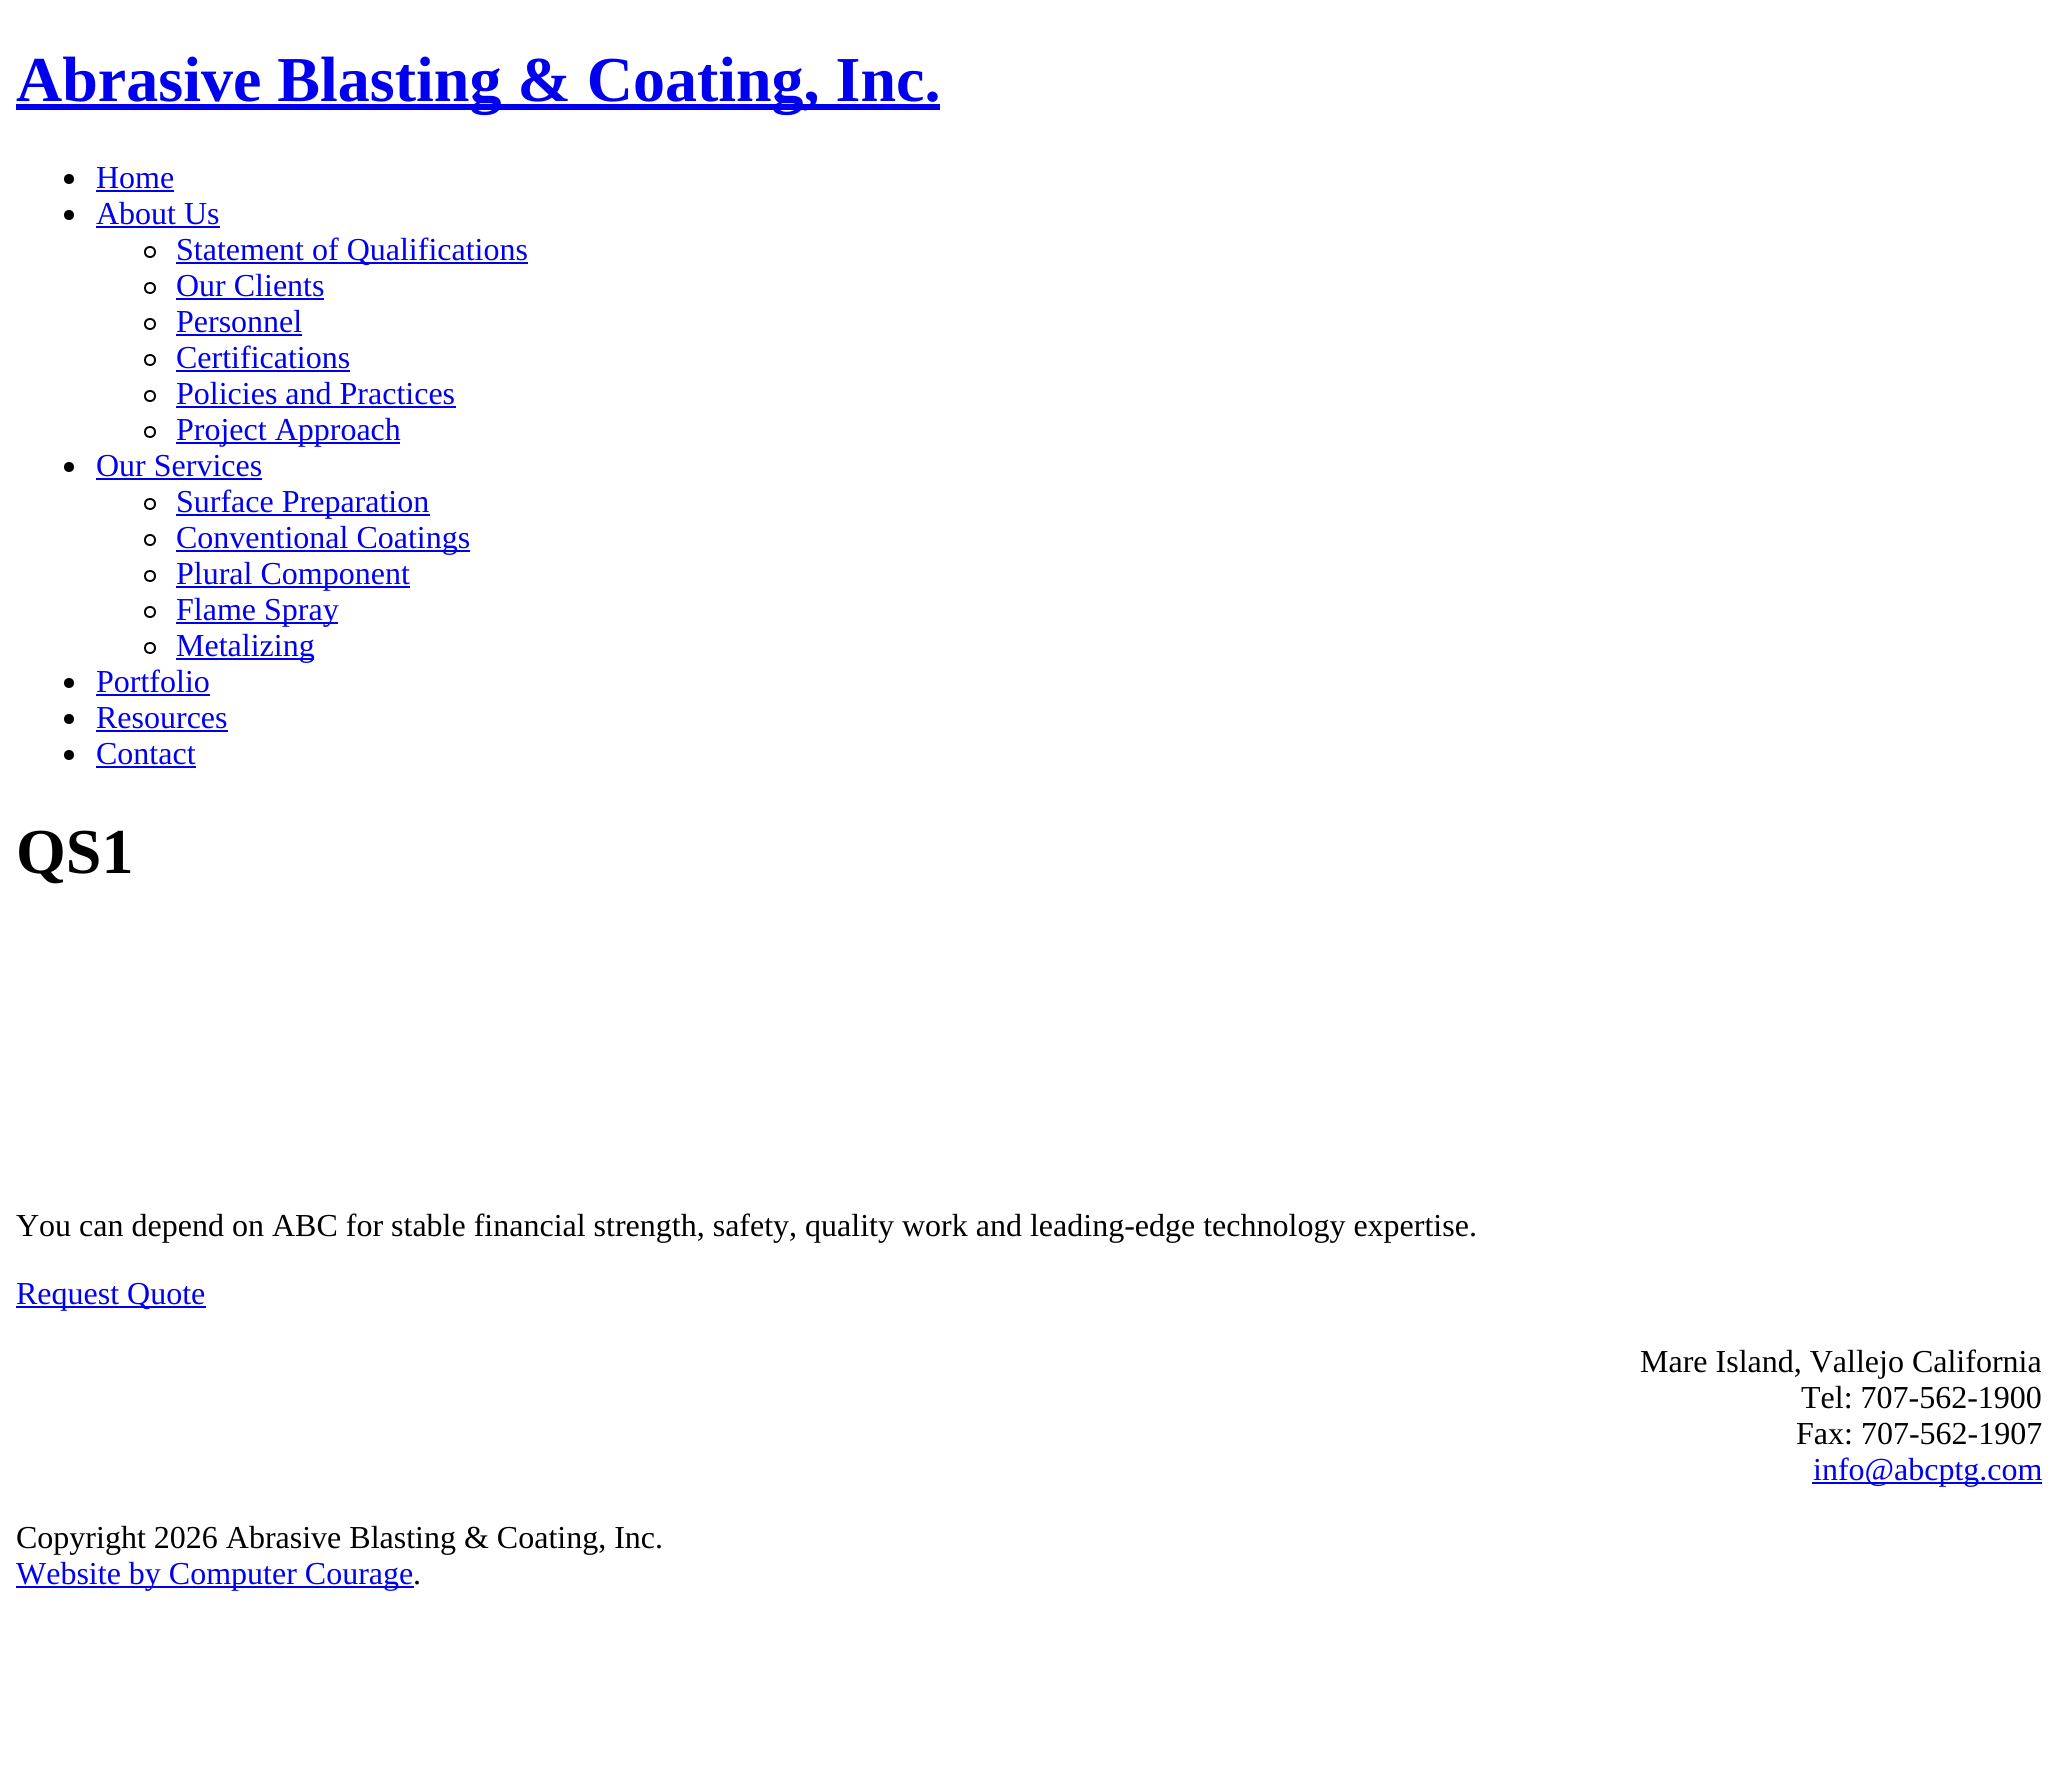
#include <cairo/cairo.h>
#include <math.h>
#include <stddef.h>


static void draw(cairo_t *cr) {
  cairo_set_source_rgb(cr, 1, 1, 1);
  cairo_paint(cr);
  cairo_set_source_rgb(cr, 0, 0, 238 / 255.0);
  cairo_rectangle(cr, 16, 104, 924, 6);
  cairo_fill(cr);
  cairo_set_source_rgb(cr, 0, 0, 0);
  cairo_arc(cr, 69, 179, 5, 0, 2 * M_PI);
  cairo_fill(cr);
  cairo_set_source_rgb(cr, 0, 0, 238 / 255.0);
  cairo_rectangle(cr, 96, 190, 78, 2);
  cairo_fill(cr);
  cairo_set_source_rgb(cr, 0, 0, 0);
  cairo_arc(cr, 69, 215, 5, 0, 2 * M_PI);
  cairo_fill(cr);
  cairo_set_source_rgb(cr, 0, 0, 238 / 255.0);
  cairo_rectangle(cr, 96, 226, 124, 2);
  cairo_fill(cr);
  cairo_arc(cr, 150, 252, 5, 0, 2 * M_PI);
  cairo_set_source_rgb(cr, 0, 0, 0);
  cairo_stroke(cr);
  cairo_set_source_rgb(cr, 0, 0, 238 / 255.0);
  cairo_rectangle(cr, 176, 262, 352, 2);
  cairo_fill(cr);
  cairo_arc(cr, 150, 288, 5, 0, 2 * M_PI);
  cairo_set_source_rgb(cr, 0, 0, 0);
  cairo_stroke(cr);
  cairo_set_source_rgb(cr, 0, 0, 238 / 255.0);
  cairo_rectangle(cr, 176, 298, 148, 2);
  cairo_fill(cr);
  cairo_arc(cr, 150, 324, 5, 0, 2 * M_PI);
  cairo_set_source_rgb(cr, 0, 0, 0);
  cairo_stroke(cr);
  cairo_set_source_rgb(cr, 0, 0, 238 / 255.0);
  cairo_rectangle(cr, 176, 334, 126, 2);
  cairo_fill(cr);
  cairo_arc(cr, 150, 360, 5, 0, 2 * M_PI);
  cairo_set_source_rgb(cr, 0, 0, 0);
  cairo_stroke(cr);
  cairo_set_source_rgb(cr, 0, 0, 238 / 255.0);
  cairo_rectangle(cr, 176, 370, 174, 2);
  cairo_fill(cr);
  cairo_arc(cr, 150, 396, 5, 0, 2 * M_PI);
  cairo_set_source_rgb(cr, 0, 0, 0);
  cairo_stroke(cr);
  cairo_set_source_rgb(cr, 0, 0, 238 / 255.0);
  cairo_rectangle(cr, 176, 406, 280, 2);
  cairo_fill(cr);
  cairo_arc(cr, 150, 432, 5, 0, 2 * M_PI);
  cairo_set_source_rgb(cr, 0, 0, 0);
  cairo_stroke(cr);
  cairo_set_source_rgb(cr, 0, 0, 238 / 255.0);
  cairo_rectangle(cr, 176, 442, 224, 2);
  cairo_fill(cr);
  cairo_set_source_rgb(cr, 0, 0, 0);
  cairo_arc(cr, 69, 467, 5, 0, 2 * M_PI);
  cairo_fill(cr);
  cairo_set_source_rgb(cr, 0, 0, 238 / 255.0);
  cairo_rectangle(cr, 96, 478, 166, 2);
  cairo_fill(cr);
  cairo_arc(cr, 150, 504, 5, 0, 2 * M_PI);
  cairo_set_source_rgb(cr, 0, 0, 0);
  cairo_stroke(cr);
  cairo_set_source_rgb(cr, 0, 0, 238 / 255.0);
  cairo_rectangle(cr, 176, 514, 254, 2);
  cairo_fill(cr);
  cairo_arc(cr, 150, 540, 5, 0, 2 * M_PI);
  cairo_set_source_rgb(cr, 0, 0, 0);
  cairo_stroke(cr);
  cairo_set_source_rgb(cr, 0, 0, 238 / 255.0);
  cairo_rectangle(cr, 176, 550, 294, 2);
  cairo_fill(cr);
  cairo_arc(cr, 150, 576, 5, 0, 2 * M_PI);
  cairo_set_source_rgb(cr, 0, 0, 0);
  cairo_stroke(cr);
  cairo_set_source_rgb(cr, 0, 0, 238 / 255.0);
  cairo_rectangle(cr, 176, 586, 234, 2);
  cairo_fill(cr);
  cairo_arc(cr, 150, 612, 5, 0, 2 * M_PI);
  cairo_set_source_rgb(cr, 0, 0, 0);
  cairo_stroke(cr);
  cairo_set_source_rgb(cr, 0, 0, 238 / 255.0);
  cairo_rectangle(cr, 176, 622, 162, 2);
  cairo_fill(cr);
  cairo_arc(cr, 150, 648, 5, 0, 2 * M_PI);
  cairo_set_source_rgb(cr, 0, 0, 0);
  cairo_stroke(cr);
  cairo_set_source_rgb(cr, 0, 0, 238 / 255.0);
  cairo_rectangle(cr, 176, 658, 138, 2);
  cairo_fill(cr);
  cairo_set_source_rgb(cr, 0, 0, 0);
  cairo_arc(cr, 69, 683, 5, 0, 2 * M_PI);
  cairo_fill(cr);
  cairo_set_source_rgb(cr, 0, 0, 238 / 255.0);
  cairo_rectangle(cr, 96, 694, 114, 2);
  cairo_fill(cr);
  cairo_set_source_rgb(cr, 0, 0, 0);
  cairo_arc(cr, 69, 719, 5, 0, 2 * M_PI);
  cairo_fill(cr);
  cairo_set_source_rgb(cr, 0, 0, 238 / 255.0);
  cairo_rectangle(cr, 96, 730, 132, 2);
  cairo_fill(cr);
  cairo_set_source_rgb(cr, 0, 0, 0);
  cairo_arc(cr, 69, 755, 5, 0, 2 * M_PI);
  cairo_fill(cr);
  cairo_set_source_rgb(cr, 0, 0, 238 / 255.0);
  cairo_rectangle(cr, 96, 766, 100, 2);
  cairo_fill(cr);
  cairo_rectangle(cr, 16, 1306, 190, 2);
  cairo_fill(cr);
  cairo_rectangle(cr, 1812, 1482, 230, 2);
  cairo_fill(cr);
  cairo_rectangle(cr, 16, 1586, 398, 2);
  cairo_fill(cr);
  cairo_select_font_face(cr, "Liberation Serif", CAIRO_FONT_SLANT_NORMAL, CAIRO_FONT_WEIGHT_BOLD);
  cairo_set_font_size(cr, 64);
  cairo_move_to(cr, 16, 101);
  cairo_show_text(cr, "Abrasive Blasting & Coating, Inc.");
  cairo_select_font_face(cr, "Liberation Serif", CAIRO_FONT_SLANT_NORMAL, CAIRO_FONT_WEIGHT_NORMAL);
  cairo_set_font_size(cr, 32);
  cairo_move_to(cr, 96, 188);
  cairo_show_text(cr, "Home");
  cairo_move_to(cr, 96, 224);
  cairo_show_text(cr, "About Us");
  cairo_move_to(cr, 176, 260);
  cairo_show_text(cr, "Statement of Qualifications");
  cairo_move_to(cr, 176, 296);
  cairo_show_text(cr, "Our Clients");
  cairo_move_to(cr, 176, 332);
  cairo_show_text(cr, "Personnel");
  cairo_move_to(cr, 176, 368);
  cairo_show_text(cr, "Certifications");
  cairo_move_to(cr, 176, 404);
  cairo_show_text(cr, "Policies and Practices");
  cairo_move_to(cr, 176, 440);
  cairo_show_text(cr, "Project Approach");
  cairo_move_to(cr, 96, 476);
  cairo_show_text(cr, "Our Services");
  cairo_move_to(cr, 176, 512);
  cairo_show_text(cr, "Surface Preparation");
  cairo_move_to(cr, 176, 548);
  cairo_show_text(cr, "Conventional Coatings");
  cairo_move_to(cr, 176, 584);
  cairo_show_text(cr, "Plural Component");
  cairo_move_to(cr, 176, 620);
  cairo_show_text(cr, "Flame Spray");
  cairo_move_to(cr, 176, 656);
  cairo_show_text(cr, "Metalizing");
  cairo_move_to(cr, 96, 692);
  cairo_show_text(cr, "Portfolio");
  cairo_move_to(cr, 96, 728);
  cairo_show_text(cr, "Resources");
  cairo_move_to(cr, 96, 764);
  cairo_show_text(cr, "Contact");
  cairo_select_font_face(cr, "Liberation Serif", CAIRO_FONT_SLANT_NORMAL, CAIRO_FONT_WEIGHT_BOLD);
  cairo_set_font_size(cr, 64);
  cairo_set_source_rgb(cr, 0, 0, 0);
  cairo_move_to(cr, 16, 873);
  cairo_show_text(cr, "QS1");
  cairo_select_font_face(cr, "Liberation Serif", CAIRO_FONT_SLANT_NORMAL, CAIRO_FONT_WEIGHT_NORMAL);
  cairo_set_font_size(cr, 32);
  cairo_move_to(cr, 16, 1236);
  cairo_show_text(cr, "You can depend on ABC for stable financial strength, safety, quality work and leading-edge technology expertise.");
  cairo_set_source_rgb(cr, 0, 0, 238 / 255.0);
  cairo_move_to(cr, 16, 1304);
  cairo_show_text(cr, "Request Quote");
  cairo_set_source_rgb(cr, 0, 0, 0);
  cairo_move_to(cr, 1640, 1372);
  cairo_show_text(cr, "Mare Island, Vallejo California");
  cairo_move_to(cr, 1801, 1408);
  cairo_show_text(cr, "Tel: 707-562-1900");
  cairo_move_to(cr, 1796, 1444);
  cairo_show_text(cr, "Fax: 707-562-1907");
  cairo_set_source_rgb(cr, 0, 0, 238 / 255.0);
  cairo_move_to(cr, 1813, 1480);
  cairo_show_text(cr, "info@abcptg.com");
  cairo_set_source_rgb(cr, 0, 0, 0);
  cairo_move_to(cr, 16, 1548);
  cairo_show_text(cr, "Copyright 2026 Abrasive Blasting & Coating, Inc.");
  cairo_set_source_rgb(cr, 0, 0, 238 / 255.0);
  cairo_move_to(cr, 16, 1584);
  cairo_show_text(cr, "Website by Computer Courage");
  cairo_set_source_rgb(cr, 0, 0, 0);
  cairo_move_to(cr, 413, 1584);
  cairo_show_text(cr, ".");
}

int main(void) {
  cairo_surface_t *surface = cairo_image_surface_create(CAIRO_FORMAT_RGB24, 2058, 1792);
  cairo_t *cr = cairo_create(surface);
  cairo_font_options_t *options = cairo_font_options_create();
  cairo_font_options_set_hint_metrics(options, CAIRO_HINT_METRICS_OFF);
  cairo_font_options_set_hint_style(options, CAIRO_HINT_STYLE_NONE);
  cairo_set_font_options(cr, options);
  cairo_set_miter_limit(cr, 4);
  draw(cr);
  cairo_surface_write_to_png(surface, "out.png");
  cairo_font_options_destroy(options);
  cairo_destroy(cr);
  cairo_surface_destroy(surface);
  return 0;
}
